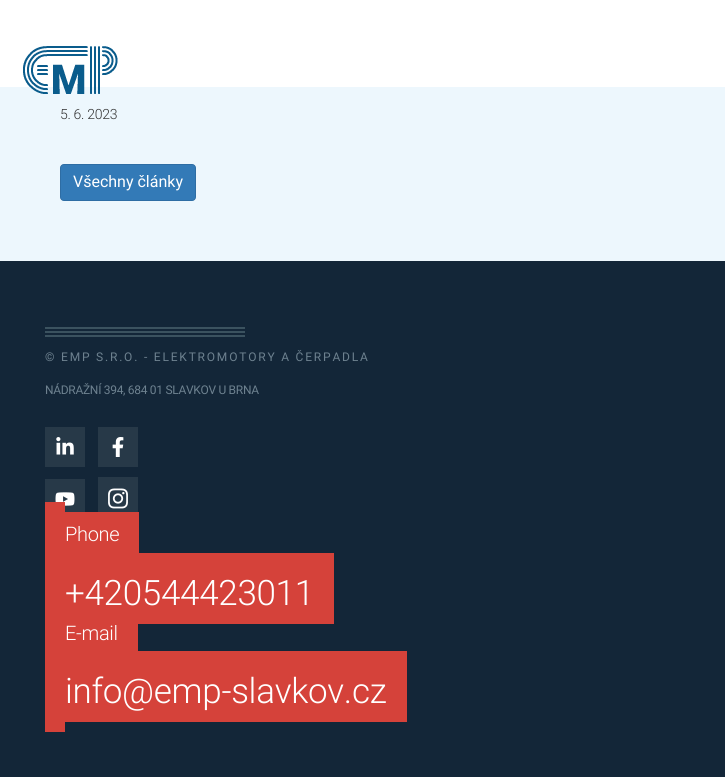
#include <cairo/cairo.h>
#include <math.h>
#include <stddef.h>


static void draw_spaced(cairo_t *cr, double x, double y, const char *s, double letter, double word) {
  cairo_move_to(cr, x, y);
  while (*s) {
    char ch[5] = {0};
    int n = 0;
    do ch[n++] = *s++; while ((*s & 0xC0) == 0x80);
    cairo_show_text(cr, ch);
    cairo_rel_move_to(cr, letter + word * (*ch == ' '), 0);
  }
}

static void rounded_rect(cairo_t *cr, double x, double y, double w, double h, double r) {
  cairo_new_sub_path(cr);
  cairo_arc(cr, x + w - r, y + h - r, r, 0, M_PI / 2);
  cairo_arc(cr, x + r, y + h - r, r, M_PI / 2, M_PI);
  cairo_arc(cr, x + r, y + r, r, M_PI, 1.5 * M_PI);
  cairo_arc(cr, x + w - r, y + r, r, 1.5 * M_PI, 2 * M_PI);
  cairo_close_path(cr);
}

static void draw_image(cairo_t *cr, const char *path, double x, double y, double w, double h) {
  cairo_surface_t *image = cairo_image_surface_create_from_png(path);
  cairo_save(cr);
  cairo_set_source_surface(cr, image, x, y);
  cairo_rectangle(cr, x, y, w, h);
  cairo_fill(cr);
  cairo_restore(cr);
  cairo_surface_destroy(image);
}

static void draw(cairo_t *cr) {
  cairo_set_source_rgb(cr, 237 / 255.0, 247 / 255.0, 253 / 255.0);
  cairo_paint(cr);
  cairo_set_source_rgb(cr, 1, 1, 1);
  cairo_rectangle(cr, 0, 0, 725, 87);
  cairo_fill(cr);
  draw_image(cr, "images/1.png", 23, 46, 95, 48);
  cairo_set_source_rgb(cr, 51 / 255.0, 122 / 255.0, 183 / 255.0);
  rounded_rect(cr, 60.5, 164.5, 135, 36, 3.5);
  cairo_fill_preserve(cr);
  cairo_set_source_rgb(cr, 46 / 255.0, 109 / 255.0, 164 / 255.0);
  cairo_set_line_width(cr, 1);
  cairo_stroke(cr);
  cairo_set_source_rgb(cr, 19 / 255.0, 38 / 255.0, 56 / 255.0);
  cairo_rectangle(cr, 0, 261, 725, 516);
  cairo_fill(cr);
  draw_image(cr, "images/2.png", 45, 327, 200, 10);
  cairo_set_source_rgb(cr, 39 / 255.0, 57 / 255.0, 72 / 255.0);
  cairo_rectangle(cr, 45, 427, 40, 40);
  cairo_fill(cr);
  cairo_rectangle(cr, 98, 427, 40, 40);
  cairo_fill(cr);
  draw_image(cr, "images/3.png", 56, 437, 18, 18);
  draw_image(cr, "images/4.png", 112, 437, 12, 20);
  cairo_rectangle(cr, 45, 479, 40, 33);
  cairo_fill(cr);
  cairo_rectangle(cr, 98, 477, 40, 35);
  cairo_fill(cr);
  draw_image(cr, "images/5.png", 55, 492, 20, 14);
  draw_image(cr, "images/6.png", 108, 488, 20, 21);
  cairo_set_source_rgb(cr, 213 / 255.0, 66 / 255.0, 58 / 255.0);
  cairo_rectangle(cr, 45, 502, 20, 230);
  cairo_fill(cr);
  cairo_rectangle(cr, 65, 512, 74, 41);
  cairo_fill(cr);
  cairo_rectangle(cr, 65, 553, 269, 71);
  cairo_fill(cr);
  cairo_rectangle(cr, 65, 624, 73, 27);
  cairo_fill(cr);
  cairo_rectangle(cr, 65, 651, 342, 71);
  cairo_fill(cr);
  cairo_select_font_face(cr, "Roboto Light", CAIRO_FONT_SLANT_NORMAL, CAIRO_FONT_WEIGHT_NORMAL);
  cairo_set_font_size(cr, 14);
  cairo_set_source_rgb(cr, 51 / 255.0, 51 / 255.0, 51 / 255.0);
  draw_spaced(cr, 60, 119, "5. 6. 2023", -0.3, 0);
  cairo_select_font_face(cr, "Roboto", CAIRO_FONT_SLANT_NORMAL, CAIRO_FONT_WEIGHT_NORMAL);
  cairo_set_font_size(cr, 16);
  cairo_set_source_rgb(cr, 1, 1, 1);
  cairo_move_to(cr, 73, 187);
  cairo_show_text(cr, "Všechny články");
  cairo_set_font_size(cr, 12);
  cairo_set_source_rgb(cr, 109 / 255.0, 129 / 255.0, 143 / 255.0);
  draw_spaced(cr, 45, 361, "© EMP S.R.O. - ELEKTROMOTORY A ČERPADLA", 1.8, 0);
  draw_spaced(cr, 45, 394, "NÁDRAŽNÍ 394, 684 01 SLAVKOV U BRNA", -0.3, 0);
  cairo_select_font_face(cr, "Roboto Light", CAIRO_FONT_SLANT_NORMAL, CAIRO_FONT_WEIGHT_NORMAL);
  cairo_set_font_size(cr, 20);
  cairo_set_source_rgb(cr, 1, 1, 1);
  draw_spaced(cr, 65, 541, "Phone", -0.3, 0);
  cairo_set_font_size(cr, 35);
  draw_spaced(cr, 65, 605, "+420544423011", -0.3, 0);
  cairo_set_font_size(cr, 20);
  draw_spaced(cr, 65, 640, "E-mail", -0.3, 0);
  cairo_set_font_size(cr, 35);
  draw_spaced(cr, 65, 703, "info@emp-slavkov.cz", -0.3, 0);
}

int main(void) {
  cairo_surface_t *surface = cairo_image_surface_create(CAIRO_FORMAT_RGB24, 725, 777);
  cairo_t *cr = cairo_create(surface);
  cairo_font_options_t *options = cairo_font_options_create();
  cairo_font_options_set_hint_metrics(options, CAIRO_HINT_METRICS_OFF);
  cairo_font_options_set_hint_style(options, CAIRO_HINT_STYLE_NONE);
  cairo_set_font_options(cr, options);
  cairo_set_miter_limit(cr, 4);
  draw(cr);
  cairo_surface_write_to_png(surface, "out.png");
  cairo_font_options_destroy(options);
  cairo_destroy(cr);
  cairo_surface_destroy(surface);
  return 0;
}
